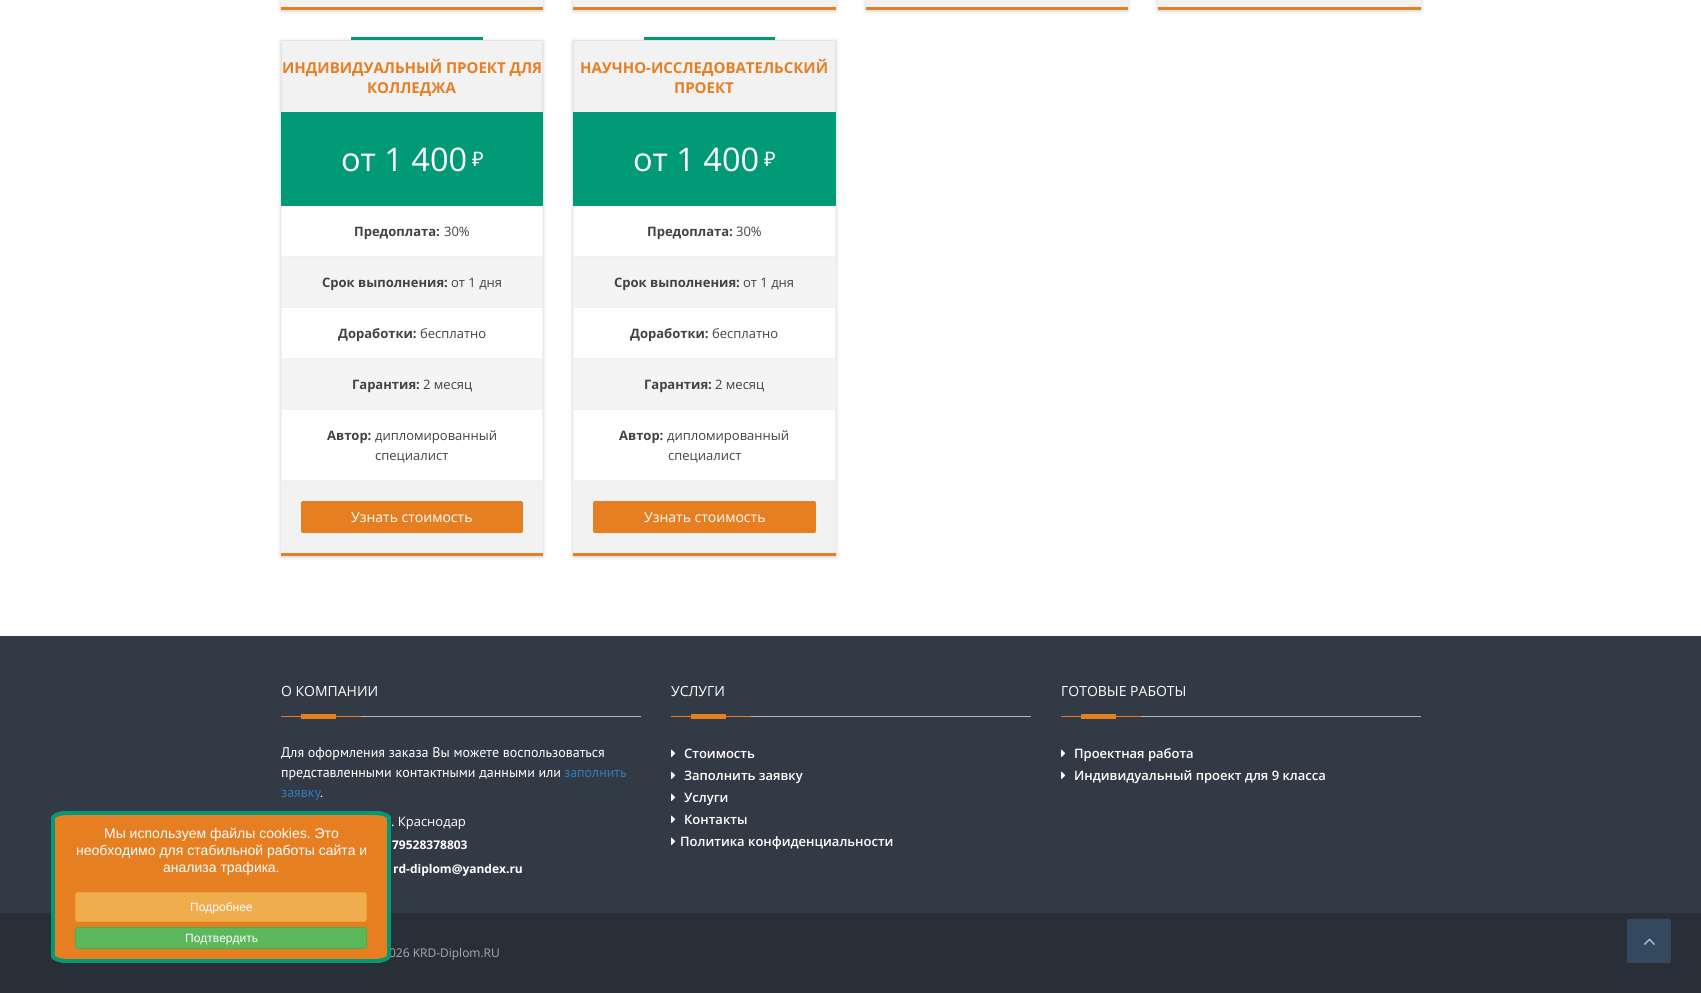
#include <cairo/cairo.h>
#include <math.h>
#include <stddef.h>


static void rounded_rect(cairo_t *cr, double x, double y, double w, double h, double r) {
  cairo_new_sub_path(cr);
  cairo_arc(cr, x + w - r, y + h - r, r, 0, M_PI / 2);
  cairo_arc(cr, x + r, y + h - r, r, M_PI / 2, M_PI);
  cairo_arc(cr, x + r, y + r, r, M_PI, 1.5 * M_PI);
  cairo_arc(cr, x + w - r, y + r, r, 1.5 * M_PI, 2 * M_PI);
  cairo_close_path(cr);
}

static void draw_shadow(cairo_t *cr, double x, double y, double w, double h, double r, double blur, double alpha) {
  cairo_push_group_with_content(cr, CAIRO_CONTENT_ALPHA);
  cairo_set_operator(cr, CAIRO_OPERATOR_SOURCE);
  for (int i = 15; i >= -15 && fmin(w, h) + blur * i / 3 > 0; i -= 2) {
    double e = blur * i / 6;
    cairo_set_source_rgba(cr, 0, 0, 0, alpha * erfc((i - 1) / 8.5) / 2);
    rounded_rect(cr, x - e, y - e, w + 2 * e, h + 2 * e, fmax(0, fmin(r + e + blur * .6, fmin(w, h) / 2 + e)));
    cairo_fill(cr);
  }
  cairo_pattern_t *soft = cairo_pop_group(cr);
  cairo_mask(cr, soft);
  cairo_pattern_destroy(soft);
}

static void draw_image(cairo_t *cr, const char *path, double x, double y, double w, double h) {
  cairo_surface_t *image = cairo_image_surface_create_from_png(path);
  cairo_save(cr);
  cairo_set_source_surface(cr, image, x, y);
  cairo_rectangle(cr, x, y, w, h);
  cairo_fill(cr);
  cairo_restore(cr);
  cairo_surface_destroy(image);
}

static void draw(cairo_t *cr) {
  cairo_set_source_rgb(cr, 1, 1, 1);
  cairo_paint(cr);
  cairo_set_source_rgb(cr, 204 / 255.0, 204 / 255.0, 204 / 255.0);
  draw_shadow(cr, 281, -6, 262, 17, 0, 2, 1);
  cairo_set_source_rgb(cr, 230 / 255.0, 126 / 255.0, 34 / 255.0);
  cairo_rectangle(cr, 281, 7, 262, 3);
  cairo_fill(cr);
  cairo_set_source_rgb(cr, 242 / 255.0, 242 / 255.0, 242 / 255.0);
  cairo_rectangle(cr, 281, 0, 262, 7);
  cairo_fill(cr);
  cairo_set_source_rgb(cr, 204 / 255.0, 204 / 255.0, 204 / 255.0);
  draw_shadow(cr, 573, -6, 263, 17, 0, 2, 1);
  cairo_set_source_rgb(cr, 230 / 255.0, 126 / 255.0, 34 / 255.0);
  cairo_rectangle(cr, 573, 7, 263, 3);
  cairo_fill(cr);
  cairo_set_source_rgb(cr, 242 / 255.0, 242 / 255.0, 242 / 255.0);
  cairo_rectangle(cr, 573, 0, 263, 7);
  cairo_fill(cr);
  cairo_set_source_rgb(cr, 204 / 255.0, 204 / 255.0, 204 / 255.0);
  draw_shadow(cr, 866, -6, 262, 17, 0, 2, 1);
  cairo_set_source_rgb(cr, 230 / 255.0, 126 / 255.0, 34 / 255.0);
  cairo_rectangle(cr, 866, 7, 262, 3);
  cairo_fill(cr);
  cairo_set_source_rgb(cr, 242 / 255.0, 242 / 255.0, 242 / 255.0);
  cairo_rectangle(cr, 866, 0, 262, 7);
  cairo_fill(cr);
  cairo_set_source_rgb(cr, 204 / 255.0, 204 / 255.0, 204 / 255.0);
  draw_shadow(cr, 1158, -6, 263, 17, 0, 2, 1);
  cairo_set_source_rgb(cr, 230 / 255.0, 126 / 255.0, 34 / 255.0);
  cairo_rectangle(cr, 1158, 7, 263, 3);
  cairo_fill(cr);
  cairo_set_source_rgb(cr, 242 / 255.0, 242 / 255.0, 242 / 255.0);
  cairo_rectangle(cr, 1158, 0, 263, 7);
  cairo_fill(cr);
  cairo_save(cr);
  cairo_set_fill_rule(cr, CAIRO_FILL_RULE_EVEN_ODD);
  cairo_new_path(cr);
  cairo_move_to(cr, 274, 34);
  cairo_line_to(cr, 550, 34);
  cairo_line_to(cr, 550, 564);
  cairo_line_to(cr, 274, 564);
  cairo_close_path(cr);
  cairo_move_to(cr, 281, 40);
  cairo_line_to(cr, 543, 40);
  cairo_line_to(cr, 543, 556);
  cairo_line_to(cr, 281, 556);
  cairo_close_path(cr);
  cairo_clip(cr);
  cairo_set_source_rgb(cr, 204 / 255.0, 204 / 255.0, 204 / 255.0);
  draw_shadow(cr, 281, 41, 262, 516, 0, 2, 1);
  cairo_restore(cr);
  cairo_set_source_rgb(cr, 230 / 255.0, 126 / 255.0, 34 / 255.0);
  cairo_rectangle(cr, 281, 553, 262, 3);
  cairo_fill(cr);
  cairo_set_source_rgb(cr, 0, 155 / 255.0, 118 / 255.0);
  cairo_rectangle(cr, 351, 37, 132, 3);
  cairo_fill(cr);
  cairo_set_source_rgb(cr, 242 / 255.0, 242 / 255.0, 242 / 255.0);
  cairo_rectangle(cr, 282, 41, 260, 71);
  cairo_fill(cr);
  cairo_set_source_rgb(cr, 228 / 255.0, 228 / 255.0, 228 / 255.0);
  cairo_rectangle(cr, 281, 40, 262, 1);
  cairo_fill(cr);
  cairo_rectangle(cr, 542, 40, 1, 72);
  cairo_fill(cr);
  cairo_rectangle(cr, 281, 40, 1, 72);
  cairo_fill(cr);
  cairo_set_source_rgb(cr, 0, 155 / 255.0, 118 / 255.0);
  cairo_rectangle(cr, 281, 112, 262, 94);
  cairo_fill(cr);
  cairo_set_source_rgb(cr, 242 / 255.0, 242 / 255.0, 242 / 255.0);
  cairo_rectangle(cr, 542, 206, 1, 275);
  cairo_fill(cr);
  cairo_rectangle(cr, 281, 206, 1, 275);
  cairo_fill(cr);
  cairo_set_source_rgb(cr, 240 / 255.0, 240 / 255.0, 240 / 255.0);
  cairo_rectangle(cr, 282, 256, 260, 1);
  cairo_fill(cr);
  cairo_set_source_rgb(cr, 244 / 255.0, 244 / 255.0, 244 / 255.0);
  cairo_rectangle(cr, 282, 257, 260, 50);
  cairo_fill(cr);
  cairo_set_source_rgb(cr, 240 / 255.0, 240 / 255.0, 240 / 255.0);
  cairo_rectangle(cr, 282, 307, 260, 1);
  cairo_fill(cr);
  cairo_rectangle(cr, 282, 358, 260, 1);
  cairo_fill(cr);
  cairo_set_source_rgb(cr, 244 / 255.0, 244 / 255.0, 244 / 255.0);
  cairo_rectangle(cr, 282, 359, 260, 50);
  cairo_fill(cr);
  cairo_set_source_rgb(cr, 240 / 255.0, 240 / 255.0, 240 / 255.0);
  cairo_rectangle(cr, 282, 409, 260, 1);
  cairo_fill(cr);
  cairo_rectangle(cr, 282, 480, 260, 1);
  cairo_fill(cr);
  cairo_set_source_rgb(cr, 242 / 255.0, 242 / 255.0, 242 / 255.0);
  cairo_rectangle(cr, 281, 481, 262, 72);
  cairo_fill(cr);
  cairo_set_source_rgb(cr, 230 / 255.0, 126 / 255.0, 34 / 255.0);
  rounded_rect(cr, 301, 501, 222, 32, 2);
  cairo_fill(cr);
  cairo_save(cr);
  cairo_set_fill_rule(cr, CAIRO_FILL_RULE_EVEN_ODD);
  cairo_new_path(cr);
  cairo_move_to(cr, 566, 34);
  cairo_line_to(cr, 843, 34);
  cairo_line_to(cr, 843, 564);
  cairo_line_to(cr, 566, 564);
  cairo_close_path(cr);
  cairo_move_to(cr, 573, 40);
  cairo_line_to(cr, 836, 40);
  cairo_line_to(cr, 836, 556);
  cairo_line_to(cr, 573, 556);
  cairo_close_path(cr);
  cairo_clip(cr);
  cairo_set_source_rgb(cr, 204 / 255.0, 204 / 255.0, 204 / 255.0);
  draw_shadow(cr, 573, 41, 263, 516, 0, 2, 1);
  cairo_restore(cr);
  cairo_rectangle(cr, 573, 553, 263, 3);
  cairo_fill(cr);
  cairo_set_source_rgb(cr, 0, 155 / 255.0, 118 / 255.0);
  cairo_rectangle(cr, 644, 37, 131, 3);
  cairo_fill(cr);
  cairo_set_source_rgb(cr, 242 / 255.0, 242 / 255.0, 242 / 255.0);
  cairo_rectangle(cr, 574, 41, 261, 71);
  cairo_fill(cr);
  cairo_set_source_rgb(cr, 228 / 255.0, 228 / 255.0, 228 / 255.0);
  cairo_rectangle(cr, 573, 40, 263, 1);
  cairo_fill(cr);
  cairo_rectangle(cr, 835, 40, 1, 72);
  cairo_fill(cr);
  cairo_rectangle(cr, 573, 40, 1, 72);
  cairo_fill(cr);
  cairo_set_source_rgb(cr, 0, 155 / 255.0, 118 / 255.0);
  cairo_rectangle(cr, 573, 112, 263, 94);
  cairo_fill(cr);
  cairo_set_source_rgb(cr, 242 / 255.0, 242 / 255.0, 242 / 255.0);
  cairo_rectangle(cr, 835, 206, 1, 275);
  cairo_fill(cr);
  cairo_rectangle(cr, 573, 206, 1, 275);
  cairo_fill(cr);
  cairo_set_source_rgb(cr, 240 / 255.0, 240 / 255.0, 240 / 255.0);
  cairo_rectangle(cr, 574, 256, 261, 1);
  cairo_fill(cr);
  cairo_set_source_rgb(cr, 244 / 255.0, 244 / 255.0, 244 / 255.0);
  cairo_rectangle(cr, 574, 257, 261, 50);
  cairo_fill(cr);
  cairo_set_source_rgb(cr, 240 / 255.0, 240 / 255.0, 240 / 255.0);
  cairo_rectangle(cr, 574, 307, 261, 1);
  cairo_fill(cr);
  cairo_rectangle(cr, 574, 358, 261, 1);
  cairo_fill(cr);
  cairo_set_source_rgb(cr, 244 / 255.0, 244 / 255.0, 244 / 255.0);
  cairo_rectangle(cr, 574, 359, 261, 50);
  cairo_fill(cr);
  cairo_set_source_rgb(cr, 240 / 255.0, 240 / 255.0, 240 / 255.0);
  cairo_rectangle(cr, 574, 409, 261, 1);
  cairo_fill(cr);
  cairo_rectangle(cr, 574, 480, 261, 1);
  cairo_fill(cr);
  cairo_set_source_rgb(cr, 242 / 255.0, 242 / 255.0, 242 / 255.0);
  cairo_rectangle(cr, 573, 481, 263, 72);
  cairo_fill(cr);
  cairo_set_source_rgb(cr, 230 / 255.0, 126 / 255.0, 34 / 255.0);
  rounded_rect(cr, 593, 501, 223, 32, 2);
  cairo_fill(cr);
  cairo_set_source_rgb(cr, 50 / 255.0, 58 / 255.0, 69 / 255.0);
  cairo_rectangle(cr, 0, 636, 1701, 277);
  cairo_fill(cr);
  cairo_set_source_rgb(cr, 181 / 255.0, 181 / 255.0, 181 / 255.0);
  cairo_rectangle(cr, 361, 716, 280, 1);
  cairo_fill(cr);
  cairo_set_source_rgb(cr, 230 / 255.0, 126 / 255.0, 34 / 255.0);
  cairo_rectangle(cr, 301, 714, 35, 5);
  cairo_fill(cr);
  cairo_rectangle(cr, 281, 716, 80, 1);
  cairo_fill(cr);
  cairo_set_source_rgb(cr, 181 / 255.0, 181 / 255.0, 181 / 255.0);
  cairo_rectangle(cr, 751, 716, 280, 1);
  cairo_fill(cr);
  cairo_set_source_rgb(cr, 230 / 255.0, 126 / 255.0, 34 / 255.0);
  cairo_rectangle(cr, 691, 714, 35, 5);
  cairo_fill(cr);
  cairo_rectangle(cr, 671, 716, 80, 1);
  cairo_fill(cr);
  draw_image(cr, "images/1.png", 671, 749, 5, 8);
  draw_image(cr, "images/1.png", 671, 771, 5, 8);
  draw_image(cr, "images/1.png", 671, 793, 5, 8);
  draw_image(cr, "images/1.png", 671, 815, 5, 8);
  draw_image(cr, "images/1.png", 671, 837, 5, 8);
  cairo_set_source_rgb(cr, 181 / 255.0, 181 / 255.0, 181 / 255.0);
  cairo_rectangle(cr, 1141, 716, 280, 1);
  cairo_fill(cr);
  cairo_set_source_rgb(cr, 230 / 255.0, 126 / 255.0, 34 / 255.0);
  cairo_rectangle(cr, 1081, 714, 35, 5);
  cairo_fill(cr);
  cairo_rectangle(cr, 1061, 716, 80, 1);
  cairo_fill(cr);
  draw_image(cr, "images/1.png", 1061, 749, 5, 8);
  draw_image(cr, "images/1.png", 1061, 771, 5, 8);
  cairo_set_source_rgb(cr, 41 / 255.0, 47 / 255.0, 56 / 255.0);
  cairo_rectangle(cr, 0, 913, 1701, 80);
  cairo_fill(cr);
  cairo_set_source_rgb(cr, 52 / 255.0, 73 / 255.0, 94 / 255.0);
  rounded_rect(cr, 1627, 919, 44, 44, 2);
  cairo_fill(cr);
  draw_image(cr, "images/2.png", 1643, 938, 12, 7);
  cairo_select_font_face(cr, "Open Sans", CAIRO_FONT_SLANT_NORMAL, CAIRO_FONT_WEIGHT_BOLD);
  cairo_set_font_size(cr, 15);
  cairo_set_source_rgb(cr, 230 / 255.0, 126 / 255.0, 34 / 255.0);
  cairo_move_to(cr, 282, 73);
  cairo_show_text(cr, "ИНДИВИДУАЛЬНЫЙ ПРОЕКТ ДЛЯ");
  cairo_move_to(cr, 367, 93);
  cairo_show_text(cr, "КОЛЛЕДЖА");
  cairo_select_font_face(cr, "Open Sans", CAIRO_FONT_SLANT_NORMAL, CAIRO_FONT_WEIGHT_NORMAL);
  cairo_set_font_size(cr, 32.5);
  cairo_set_source_rgb(cr, 1, 1, 1);
  cairo_move_to(cr, 341, 171);
  cairo_show_text(cr, "от 1 400");
  cairo_select_font_face(cr, "Noto Sans", CAIRO_FONT_SLANT_NORMAL, CAIRO_FONT_WEIGHT_NORMAL);
  cairo_set_font_size(cr, 20);
  cairo_move_to(cr, 472, 166);
  cairo_show_text(cr, "₽");
  cairo_select_font_face(cr, "Open Sans", CAIRO_FONT_SLANT_NORMAL, CAIRO_FONT_WEIGHT_BOLD);
  cairo_set_font_size(cr, 13);
  cairo_set_source_rgb(cr, 67 / 255.0, 67 / 255.0, 67 / 255.0);
  cairo_move_to(cr, 354, 236);
  cairo_show_text(cr, "Предоплата:");
  cairo_select_font_face(cr, "Open Sans", CAIRO_FONT_SLANT_NORMAL, CAIRO_FONT_WEIGHT_NORMAL);
  cairo_move_to(cr, 444, 236);
  cairo_show_text(cr, "30%");
  cairo_select_font_face(cr, "Open Sans", CAIRO_FONT_SLANT_NORMAL, CAIRO_FONT_WEIGHT_BOLD);
  cairo_move_to(cr, 322, 287);
  cairo_show_text(cr, "Срок выполнения:");
  cairo_select_font_face(cr, "Open Sans", CAIRO_FONT_SLANT_NORMAL, CAIRO_FONT_WEIGHT_NORMAL);
  cairo_move_to(cr, 451, 287);
  cairo_show_text(cr, "от 1 дня");
  cairo_select_font_face(cr, "Open Sans", CAIRO_FONT_SLANT_NORMAL, CAIRO_FONT_WEIGHT_BOLD);
  cairo_move_to(cr, 338, 338);
  cairo_show_text(cr, "Доработки:");
  cairo_select_font_face(cr, "Open Sans", CAIRO_FONT_SLANT_NORMAL, CAIRO_FONT_WEIGHT_NORMAL);
  cairo_move_to(cr, 420, 338);
  cairo_show_text(cr, "бесплатно");
  cairo_select_font_face(cr, "Open Sans", CAIRO_FONT_SLANT_NORMAL, CAIRO_FONT_WEIGHT_BOLD);
  cairo_move_to(cr, 352, 389);
  cairo_show_text(cr, "Гарантия:");
  cairo_select_font_face(cr, "Open Sans", CAIRO_FONT_SLANT_NORMAL, CAIRO_FONT_WEIGHT_NORMAL);
  cairo_move_to(cr, 423, 389);
  cairo_show_text(cr, "2 месяц");
  cairo_select_font_face(cr, "Open Sans", CAIRO_FONT_SLANT_NORMAL, CAIRO_FONT_WEIGHT_BOLD);
  cairo_move_to(cr, 327, 440);
  cairo_show_text(cr, "Автор:");
  cairo_select_font_face(cr, "Open Sans", CAIRO_FONT_SLANT_NORMAL, CAIRO_FONT_WEIGHT_NORMAL);
  cairo_move_to(cr, 375, 440);
  cairo_show_text(cr, "дипломированный");
  cairo_move_to(cr, 375, 460);
  cairo_show_text(cr, "специалист");
  cairo_set_font_size(cr, 14);
  cairo_set_source_rgb(cr, 1, 1, 1);
  cairo_move_to(cr, 351, 522);
  cairo_show_text(cr, "Узнать стоимость");
  cairo_select_font_face(cr, "Open Sans", CAIRO_FONT_SLANT_NORMAL, CAIRO_FONT_WEIGHT_BOLD);
  cairo_set_font_size(cr, 15);
  cairo_set_source_rgb(cr, 230 / 255.0, 126 / 255.0, 34 / 255.0);
  cairo_move_to(cr, 580, 73);
  cairo_show_text(cr, "НАУЧНО-ИССЛЕДОВАТЕЛЬСКИЙ");
  cairo_move_to(cr, 674, 93);
  cairo_show_text(cr, "ПРОЕКТ");
  cairo_select_font_face(cr, "Open Sans", CAIRO_FONT_SLANT_NORMAL, CAIRO_FONT_WEIGHT_NORMAL);
  cairo_set_font_size(cr, 32.5);
  cairo_set_source_rgb(cr, 1, 1, 1);
  cairo_move_to(cr, 633, 171);
  cairo_show_text(cr, "от 1 400");
  cairo_select_font_face(cr, "Noto Sans", CAIRO_FONT_SLANT_NORMAL, CAIRO_FONT_WEIGHT_NORMAL);
  cairo_set_font_size(cr, 20);
  cairo_move_to(cr, 764, 166);
  cairo_show_text(cr, "₽");
  cairo_select_font_face(cr, "Open Sans", CAIRO_FONT_SLANT_NORMAL, CAIRO_FONT_WEIGHT_BOLD);
  cairo_set_font_size(cr, 13);
  cairo_set_source_rgb(cr, 67 / 255.0, 67 / 255.0, 67 / 255.0);
  cairo_move_to(cr, 647, 236);
  cairo_show_text(cr, "Предоплата:");
  cairo_select_font_face(cr, "Open Sans", CAIRO_FONT_SLANT_NORMAL, CAIRO_FONT_WEIGHT_NORMAL);
  cairo_move_to(cr, 736, 236);
  cairo_show_text(cr, "30%");
  cairo_select_font_face(cr, "Open Sans", CAIRO_FONT_SLANT_NORMAL, CAIRO_FONT_WEIGHT_BOLD);
  cairo_move_to(cr, 614, 287);
  cairo_show_text(cr, "Срок выполнения:");
  cairo_select_font_face(cr, "Open Sans", CAIRO_FONT_SLANT_NORMAL, CAIRO_FONT_WEIGHT_NORMAL);
  cairo_move_to(cr, 743, 287);
  cairo_show_text(cr, "от 1 дня");
  cairo_select_font_face(cr, "Open Sans", CAIRO_FONT_SLANT_NORMAL, CAIRO_FONT_WEIGHT_BOLD);
  cairo_move_to(cr, 630, 338);
  cairo_show_text(cr, "Доработки:");
  cairo_select_font_face(cr, "Open Sans", CAIRO_FONT_SLANT_NORMAL, CAIRO_FONT_WEIGHT_NORMAL);
  cairo_move_to(cr, 712, 338);
  cairo_show_text(cr, "бесплатно");
  cairo_select_font_face(cr, "Open Sans", CAIRO_FONT_SLANT_NORMAL, CAIRO_FONT_WEIGHT_BOLD);
  cairo_move_to(cr, 644, 389);
  cairo_show_text(cr, "Гарантия:");
  cairo_select_font_face(cr, "Open Sans", CAIRO_FONT_SLANT_NORMAL, CAIRO_FONT_WEIGHT_NORMAL);
  cairo_move_to(cr, 715, 389);
  cairo_show_text(cr, "2 месяц");
  cairo_select_font_face(cr, "Open Sans", CAIRO_FONT_SLANT_NORMAL, CAIRO_FONT_WEIGHT_BOLD);
  cairo_move_to(cr, 619, 440);
  cairo_show_text(cr, "Автор:");
  cairo_select_font_face(cr, "Open Sans", CAIRO_FONT_SLANT_NORMAL, CAIRO_FONT_WEIGHT_NORMAL);
  cairo_move_to(cr, 667, 440);
  cairo_show_text(cr, "дипломированный");
  cairo_move_to(cr, 668, 460);
  cairo_show_text(cr, "специалист");
  cairo_set_font_size(cr, 14);
  cairo_set_source_rgb(cr, 1, 1, 1);
  cairo_move_to(cr, 644, 522);
  cairo_show_text(cr, "Узнать стоимость");
  cairo_move_to(cr, 281, 696);
  cairo_show_text(cr, "О КОМПАНИИ");
  cairo_select_font_face(cr, "PT Sans", CAIRO_FONT_SLANT_NORMAL, CAIRO_FONT_WEIGHT_NORMAL);
  cairo_move_to(cr, 281, 757);
  cairo_show_text(cr, "Для оформления заказа Вы можете воспользоваться");
  cairo_move_to(cr, 281, 777);
  cairo_show_text(cr, "представленными контактными данными или");
  cairo_set_source_rgb(cr, 51 / 255.0, 122 / 255.0, 183 / 255.0);
  cairo_move_to(cr, 564, 777);
  cairo_show_text(cr, "заполнить");
  cairo_move_to(cr, 281, 797);
  cairo_show_text(cr, "заявку");
  cairo_set_source_rgb(cr, 1, 1, 1);
  cairo_move_to(cr, 320, 797);
  cairo_show_text(cr, ".");
  cairo_select_font_face(cr, "Open Sans", CAIRO_FONT_SLANT_NORMAL, CAIRO_FONT_WEIGHT_NORMAL);
  cairo_set_font_size(cr, 13);
  cairo_move_to(cr, 391, 826);
  cairo_show_text(cr, ". Краснодар");
  cairo_select_font_face(cr, "Open Sans", CAIRO_FONT_SLANT_NORMAL, CAIRO_FONT_WEIGHT_BOLD);
  cairo_set_font_size(cr, 12);
  cairo_move_to(cr, 392, 849);
  cairo_show_text(cr, "79528378803");
  cairo_move_to(cr, 393, 873);
  cairo_show_text(cr, "rd-diplom@yandex.ru");
  cairo_select_font_face(cr, "Open Sans", CAIRO_FONT_SLANT_NORMAL, CAIRO_FONT_WEIGHT_NORMAL);
  cairo_set_font_size(cr, 14);
  cairo_move_to(cr, 671, 696);
  cairo_show_text(cr, "УСЛУГИ");
  cairo_select_font_face(cr, "Open Sans SemiBold", CAIRO_FONT_SLANT_NORMAL, CAIRO_FONT_WEIGHT_NORMAL);
  cairo_set_font_size(cr, 13);
  cairo_move_to(cr, 684, 758);
  cairo_show_text(cr, "Стоимость");
  cairo_move_to(cr, 684, 780);
  cairo_show_text(cr, "Заполнить заявку");
  cairo_move_to(cr, 684, 802);
  cairo_show_text(cr, "Услуги");
  cairo_move_to(cr, 684, 824);
  cairo_show_text(cr, "Контакты");
  cairo_move_to(cr, 680, 846);
  cairo_show_text(cr, "Политика конфиденциальности");
  cairo_select_font_face(cr, "Open Sans", CAIRO_FONT_SLANT_NORMAL, CAIRO_FONT_WEIGHT_NORMAL);
  cairo_set_font_size(cr, 14);
  cairo_move_to(cr, 1061, 696);
  cairo_show_text(cr, "ГОТОВЫЕ РАБОТЫ");
  cairo_select_font_face(cr, "Open Sans SemiBold", CAIRO_FONT_SLANT_NORMAL, CAIRO_FONT_WEIGHT_NORMAL);
  cairo_set_font_size(cr, 13);
  cairo_move_to(cr, 1074, 758);
  cairo_show_text(cr, "Проектная работа");
  cairo_move_to(cr, 1074, 780);
  cairo_show_text(cr, "Индивидуальный проект для 9 класса");
  cairo_select_font_face(cr, "Open Sans", CAIRO_FONT_SLANT_NORMAL, CAIRO_FONT_WEIGHT_NORMAL);
  cairo_set_font_size(cr, 12);
  cairo_set_source_rgb(cr, 170 / 255.0, 170 / 255.0, 170 / 255.0);
  cairo_move_to(cr, 389, 957);
  cairo_show_text(cr, "026 KRD-Diplom.RU");
  cairo_set_source_rgb(cr, 230 / 255.0, 126 / 255.0, 34 / 255.0);
  cairo_new_path(cr);
  cairo_move_to(cr, 68, 811);
  cairo_line_to(cr, 374, 811);
  cairo_curve_to(cr, 383, 811, 391, 814, 391, 819);
  cairo_line_to(cr, 391, 955);
  cairo_curve_to(cr, 391, 960, 383, 963, 374, 963);
  cairo_line_to(cr, 68, 963);
  cairo_curve_to(cr, 59, 963, 51, 960, 51, 955);
  cairo_line_to(cr, 51, 819);
  cairo_curve_to(cr, 51, 814, 59, 811, 68, 811);
  cairo_close_path(cr);
  cairo_fill(cr);
  cairo_new_path(cr);
  cairo_move_to(cr, 68, 813);
  cairo_line_to(cr, 374, 813);
  cairo_curve_to(cr, 382.5, 813, 389, 815.5, 389, 818.5);
  cairo_line_to(cr, 389, 955.5);
  cairo_curve_to(cr, 389, 958.5, 382.5, 961, 374, 961);
  cairo_line_to(cr, 68, 961);
  cairo_curve_to(cr, 59.5, 961, 53, 958.5, 53, 955.5);
  cairo_line_to(cr, 53, 818.5);
  cairo_curve_to(cr, 53, 815.5, 59.5, 813, 68, 813);
  cairo_close_path(cr);
  cairo_set_source_rgb(cr, 0, 155 / 255.0, 118 / 255.0);
  cairo_set_line_width(cr, 4);
  cairo_stroke(cr);
  cairo_set_source_rgb(cr, 92 / 255.0, 184 / 255.0, 92 / 255.0);
  rounded_rect(cr, 75.5, 927.5, 291, 21, 2.5);
  cairo_fill_preserve(cr);
  cairo_set_source_rgb(cr, 76 / 255.0, 174 / 255.0, 76 / 255.0);
  cairo_set_line_width(cr, 1);
  cairo_stroke(cr);
  cairo_select_font_face(cr, "Liberation Sans", CAIRO_FONT_SLANT_NORMAL, CAIRO_FONT_WEIGHT_NORMAL);
  cairo_set_source_rgb(cr, 1, 1, 1);
  cairo_move_to(cr, 185, 942);
  cairo_show_text(cr, "Подтвердить");
  cairo_set_source_rgb(cr, 240 / 255.0, 173 / 255.0, 78 / 255.0);
  rounded_rect(cr, 75.5, 892.5, 291, 29, 2.5);
  cairo_fill_preserve(cr);
  cairo_set_source_rgb(cr, 238 / 255.0, 162 / 255.0, 54 / 255.0);
  cairo_stroke(cr);
  cairo_set_source_rgb(cr, 1, 1, 1);
  cairo_move_to(cr, 190, 911);
  cairo_show_text(cr, "Подробнее");
  cairo_set_font_size(cr, 14);
  cairo_move_to(cr, 163, 872);
  cairo_show_text(cr, "анализа трафика.");
  cairo_move_to(cr, 76, 855);
  cairo_show_text(cr, "необходимо для стабильной работы сайта и");
  cairo_move_to(cr, 104, 838);
  cairo_show_text(cr, "Мы используем файлы cookies. Это");
}

int main(void) {
  cairo_surface_t *surface = cairo_image_surface_create(CAIRO_FORMAT_RGB24, 1701, 993);
  cairo_t *cr = cairo_create(surface);
  cairo_font_options_t *options = cairo_font_options_create();
  cairo_font_options_set_hint_metrics(options, CAIRO_HINT_METRICS_OFF);
  cairo_font_options_set_hint_style(options, CAIRO_HINT_STYLE_NONE);
  cairo_set_font_options(cr, options);
  cairo_set_miter_limit(cr, 4);
  draw(cr);
  cairo_surface_write_to_png(surface, "out.png");
  cairo_font_options_destroy(options);
  cairo_destroy(cr);
  cairo_surface_destroy(surface);
  return 0;
}
